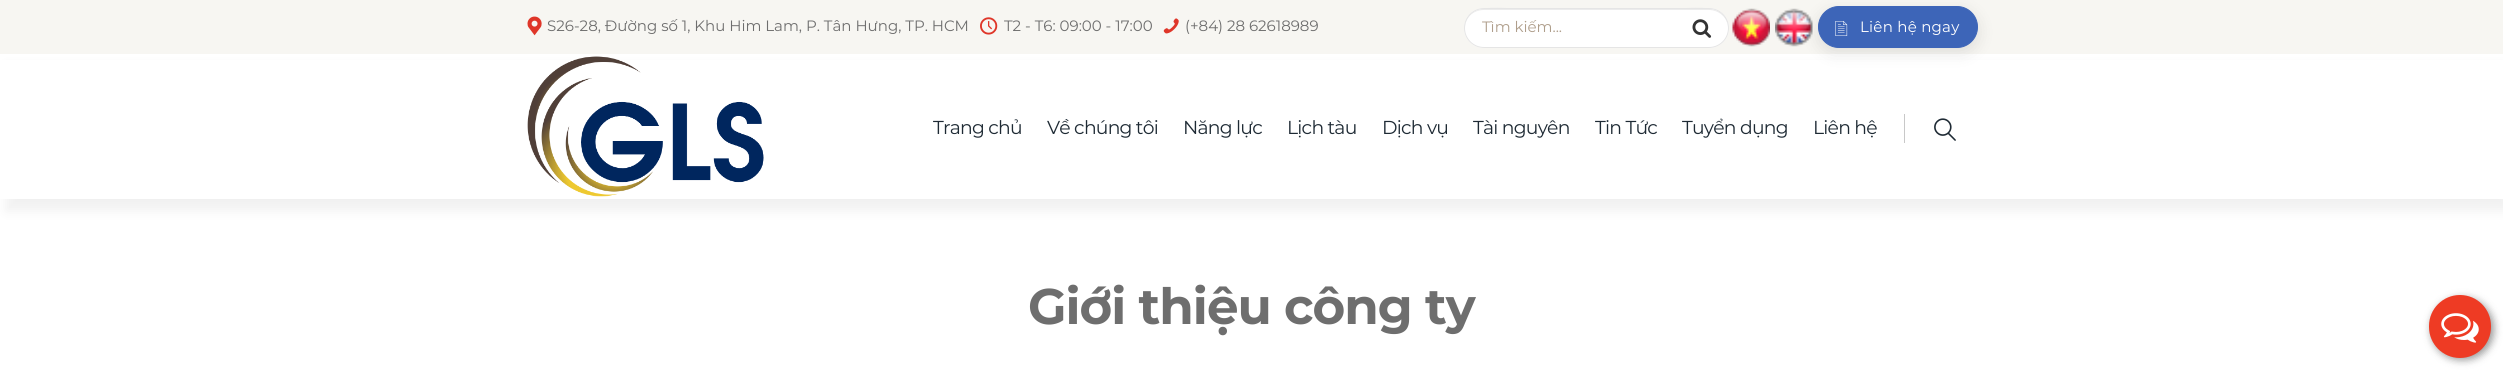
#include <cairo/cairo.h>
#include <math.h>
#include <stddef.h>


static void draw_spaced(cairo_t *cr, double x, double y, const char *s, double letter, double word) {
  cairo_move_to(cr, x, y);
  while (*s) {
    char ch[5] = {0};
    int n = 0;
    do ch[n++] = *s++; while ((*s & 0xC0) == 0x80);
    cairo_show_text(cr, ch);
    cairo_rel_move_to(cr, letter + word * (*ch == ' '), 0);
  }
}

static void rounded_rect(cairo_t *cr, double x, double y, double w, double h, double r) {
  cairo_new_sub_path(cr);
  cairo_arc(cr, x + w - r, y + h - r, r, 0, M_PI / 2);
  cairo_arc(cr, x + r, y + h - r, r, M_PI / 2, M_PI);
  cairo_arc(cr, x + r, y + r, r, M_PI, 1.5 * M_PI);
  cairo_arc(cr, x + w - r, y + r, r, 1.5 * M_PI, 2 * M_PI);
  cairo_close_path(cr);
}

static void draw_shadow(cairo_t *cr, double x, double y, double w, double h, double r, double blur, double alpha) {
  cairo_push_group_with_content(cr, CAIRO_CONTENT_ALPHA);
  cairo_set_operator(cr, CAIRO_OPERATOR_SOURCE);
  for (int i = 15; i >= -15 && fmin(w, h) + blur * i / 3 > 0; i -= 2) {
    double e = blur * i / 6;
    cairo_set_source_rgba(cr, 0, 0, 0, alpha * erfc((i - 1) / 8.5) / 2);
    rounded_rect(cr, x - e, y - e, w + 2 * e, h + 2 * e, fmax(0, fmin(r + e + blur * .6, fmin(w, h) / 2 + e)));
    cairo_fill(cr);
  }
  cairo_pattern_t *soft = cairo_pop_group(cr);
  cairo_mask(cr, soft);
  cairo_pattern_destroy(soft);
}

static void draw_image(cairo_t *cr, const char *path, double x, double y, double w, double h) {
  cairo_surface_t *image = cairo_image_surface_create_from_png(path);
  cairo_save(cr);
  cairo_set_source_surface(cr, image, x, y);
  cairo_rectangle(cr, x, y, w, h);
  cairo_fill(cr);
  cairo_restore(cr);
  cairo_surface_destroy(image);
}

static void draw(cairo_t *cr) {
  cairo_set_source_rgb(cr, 1, 1, 1);
  cairo_paint(cr);
  cairo_set_source_rgb(cr, 247 / 255.0, 246 / 255.0, 242 / 255.0);
  cairo_rectangle(cr, 0, 0, 2503, 54);
  cairo_fill(cr);
  draw_image(cr, "images/1.png", 527, 16, 15, 20);
  draw_image(cr, "images/2.png", 980, 17, 18, 18);
  draw_image(cr, "images/3.png", 1163, 18, 16, 16);
  cairo_set_source_rgb(cr, 0, 0, 0);
  draw_shadow(cr, 6, 66, 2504, 145, 0, 6, 0.06);
  cairo_set_source_rgb(cr, 1, 1, 1);
  rounded_rect(cr, 1464, 8, 265, 40, 20);
  cairo_fill(cr);
  cairo_set_source_rgb(cr, 236 / 255.0, 236 / 255.0, 236 / 255.0);
  cairo_new_path(cr);
  cairo_move_to(cr, 1484, 10);
  cairo_line_to(cr, 1709, 10);
  cairo_curve_to(cr, 1719, 10, 1728, 18, 1728, 28);
  cairo_curve_to(cr, 1729, 0, 1685, 9, 1672, 9);
  cairo_line_to(cr, 1521, 9);
  cairo_curve_to(cr, 1508, 9, 1464, 0, 1465, 28);
  cairo_curve_to(cr, 1465, 18, 1473, 10, 1484, 10);
  cairo_close_path(cr);
  cairo_fill(cr);
  rounded_rect(cr, 1464.5, 8.5, 264, 39, 19.5);
  cairo_set_source_rgb(cr, 229 / 255.0, 229 / 255.0, 229 / 255.0);
  cairo_set_line_width(cr, 1);
  cairo_stroke(cr);
  draw_image(cr, "images/4.png", 1692, 19, 20, 19);
  draw_image(cr, "images/5.png", 1732, 8, 38, 39);
  draw_image(cr, "images/6.png", 1775, 8, 38, 39);
  cairo_set_source_rgb(cr, 1, 1, 1);
  cairo_rectangle(cr, 0, 60, 2503, 139);
  cairo_fill(cr);
  cairo_set_source_rgb(cr, 0, 0, 1 / 255.0);
  draw_shadow(cr, 1818, 11, 160, 42, 21, 8, 0.1);
  cairo_set_source_rgb(cr, 61 / 255.0, 101 / 255.0, 184 / 255.0);
  rounded_rect(cr, 1818.5, 6.5, 159, 41, 20.5);
  cairo_fill_preserve(cr);
  cairo_stroke(cr);
  draw_image(cr, "images/7.png", 1835, 21, 13, 15);
  draw_image(cr, "images/8.png", 527, 56, 237, 141);
  cairo_set_source_rgb(cr, 200 / 255.0, 200 / 255.0, 200 / 255.0);
  cairo_rectangle(cr, 1904, 114, 1, 29);
  cairo_fill(cr);
  draw_image(cr, "images/9.png", 1934, 118, 22, 23);
  cairo_set_source_rgb(cr, 0, 0, 0);
  draw_shadow(cr, 2431, 298, 63, 62, 31, 4, 0.4);
  cairo_set_source_rgb(cr, 238 / 255.0, 59 / 255.0, 36 / 255.0);
  rounded_rect(cr, 2429, 295, 62, 63, 31);
  cairo_fill(cr);
  draw_image(cr, "images/10.png", 2441, 313, 38, 30);
  cairo_select_font_face(cr, "Montserrat", CAIRO_FONT_SLANT_NORMAL, CAIRO_FONT_WEIGHT_NORMAL);
  cairo_set_font_size(cr, 15);
  cairo_set_source_rgb(cr, 110 / 255.0, 110 / 255.0, 110 / 255.0);
  cairo_move_to(cr, 547, 31);
  cairo_show_text(cr, "S26-28, Đường số 1, Khu Him Lam, P. Tân Hưng, TP. HCM");
  cairo_move_to(cr, 1004, 31);
  cairo_show_text(cr, "T2 - T6: 09:00 - 17:00");
  cairo_move_to(cr, 1185, 31);
  cairo_show_text(cr, "(+84) 28 62618989");
  cairo_set_source_rgb(cr, 175 / 255.0, 158 / 255.0, 139 / 255.0);
  cairo_move_to(cr, 1482, 32);
  cairo_show_text(cr, "Tìm kiếm...");
  cairo_set_source_rgb(cr, 1, 1, 1);
  draw_spaced(cr, 1860, 32, "Liên hệ ngay", 0.25, 0);
  cairo_set_font_size(cr, 18.75);
  cairo_set_source_rgb(cr, 30 / 255.0, 42 / 255.0, 52 / 255.0);
  draw_spaced(cr, 933, 134, "Trang chủ", -0.75, 0);
  draw_spaced(cr, 1047, 134, "Về chúng tôi", -0.75, 0);
  draw_spaced(cr, 1183, 134, "Năng lực", -0.75, 0);
  draw_spaced(cr, 1287, 134, "Lịch tàu", -0.75, 0);
  draw_spaced(cr, 1382, 134, "Dịch vụ", -0.75, 0);
  draw_spaced(cr, 1473, 134, "Tài nguyên", -0.75, 0);
  draw_spaced(cr, 1595, 134, "Tin Tức", -0.75, 0);
  draw_spaced(cr, 1682, 134, "Tuyển dụng", -0.75, 0);
  draw_spaced(cr, 1813, 134, "Liên hệ", -0.75, 0);
  cairo_select_font_face(cr, "Montserrat", CAIRO_FONT_SLANT_NORMAL, CAIRO_FONT_WEIGHT_BOLD);
  cairo_set_font_size(cr, 50);
  cairo_set_source_rgb(cr, 110 / 255.0, 110 / 255.0, 110 / 255.0);
  draw_spaced(cr, 1028, 324, "Giới thiệu công ty", -1, 0);
}

int main(void) {
  cairo_surface_t *surface = cairo_image_surface_create(CAIRO_FORMAT_RGB24, 2503, 370);
  cairo_t *cr = cairo_create(surface);
  cairo_font_options_t *options = cairo_font_options_create();
  cairo_font_options_set_hint_metrics(options, CAIRO_HINT_METRICS_OFF);
  cairo_font_options_set_hint_style(options, CAIRO_HINT_STYLE_NONE);
  cairo_set_font_options(cr, options);
  cairo_set_miter_limit(cr, 4);
  draw(cr);
  cairo_surface_write_to_png(surface, "out.png");
  cairo_font_options_destroy(options);
  cairo_destroy(cr);
  cairo_surface_destroy(surface);
  return 0;
}
